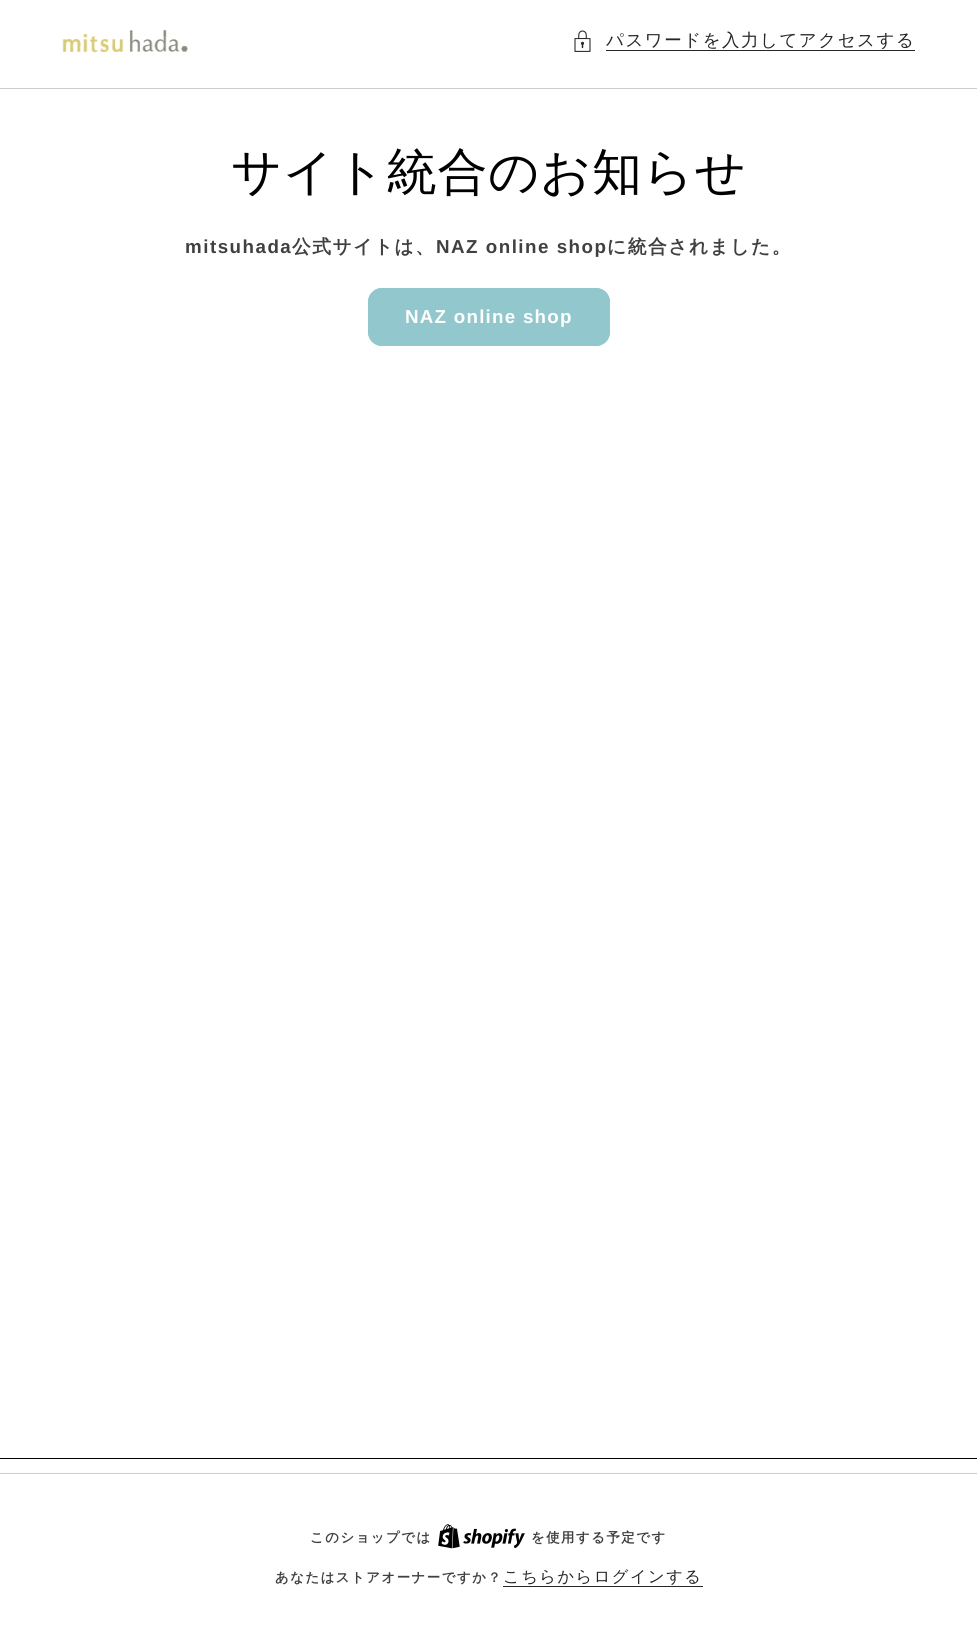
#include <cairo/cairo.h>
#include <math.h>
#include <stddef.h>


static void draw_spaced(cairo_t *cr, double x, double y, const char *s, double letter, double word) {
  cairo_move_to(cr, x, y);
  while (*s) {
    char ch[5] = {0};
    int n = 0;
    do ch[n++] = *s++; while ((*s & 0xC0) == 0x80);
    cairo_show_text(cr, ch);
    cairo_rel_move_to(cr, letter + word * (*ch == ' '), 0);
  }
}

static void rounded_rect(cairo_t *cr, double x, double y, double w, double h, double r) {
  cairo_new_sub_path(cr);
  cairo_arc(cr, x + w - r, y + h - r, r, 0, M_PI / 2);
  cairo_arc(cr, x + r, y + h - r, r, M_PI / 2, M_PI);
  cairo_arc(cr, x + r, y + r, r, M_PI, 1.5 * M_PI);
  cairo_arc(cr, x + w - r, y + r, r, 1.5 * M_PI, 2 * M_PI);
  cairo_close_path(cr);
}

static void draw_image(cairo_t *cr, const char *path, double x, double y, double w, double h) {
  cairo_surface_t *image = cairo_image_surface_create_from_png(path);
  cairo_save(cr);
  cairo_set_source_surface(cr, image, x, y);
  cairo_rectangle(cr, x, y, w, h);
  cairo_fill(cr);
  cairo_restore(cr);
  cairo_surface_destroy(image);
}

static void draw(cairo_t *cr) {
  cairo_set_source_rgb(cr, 1, 1, 1);
  cairo_paint(cr);
  draw_image(cr, "images/1.png", 62, 30, 126, 23);
  draw_image(cr, "images/2.png", 574, 30, 17, 22);
  cairo_set_source_rgb(cr, 38 / 255.0, 38 / 255.0, 38 / 255.0);
  cairo_rectangle(cr, 606, 50, 309, 1);
  cairo_fill(cr);
  cairo_set_source_rgb(cr, 204 / 255.0, 204 / 255.0, 204 / 255.0);
  cairo_rectangle(cr, 0, 88, 977, 1);
  cairo_fill(cr);
  cairo_set_source_rgb(cr, 145 / 255.0, 199 / 255.0, 205 / 255.0);
  rounded_rect(cr, 368, 288, 242, 58, 14);
  cairo_fill(cr);
  rounded_rect(cr, 368.5, 288.5, 241, 57, 13.5);
  cairo_set_line_width(cr, 1);
  cairo_stroke(cr);
  cairo_set_source_rgb(cr, 0, 0, 0);
  cairo_rectangle(cr, 0, 1458, 977, 1);
  cairo_fill(cr);
  cairo_set_source_rgb(cr, 204 / 255.0, 204 / 255.0, 204 / 255.0);
  cairo_rectangle(cr, 0, 1473, 977, 1);
  cairo_fill(cr);
  draw_image(cr, "images/3.png", 438, 1524, 87, 25);
  cairo_set_source_rgb(cr, 38 / 255.0, 38 / 255.0, 38 / 255.0);
  cairo_rectangle(cr, 503, 1586, 200, 1);
  cairo_fill(cr);
  cairo_select_font_face(cr, "WenQuanYi Zen Hei Medium", CAIRO_FONT_SLANT_NORMAL, CAIRO_FONT_WEIGHT_NORMAL);
  cairo_set_font_size(cr, 17.5);
  draw_spaced(cr, 606, 46, "パスワードを入力してアクセスする", 1.5, 0);
  cairo_set_font_size(cr, 50);
  cairo_set_source_rgb(cr, 0, 0, 0);
  draw_spaced(cr, 231, 189, "サイト統合のお知らせ", 0.75, 0);
  cairo_select_font_face(cr, "Liberation Sans", CAIRO_FONT_SLANT_NORMAL, CAIRO_FONT_WEIGHT_BOLD);
  cairo_set_font_size(cr, 18.75);
  cairo_set_source_rgb(cr, 64 / 255.0, 64 / 255.0, 64 / 255.0);
  draw_spaced(cr, 185, 253, "mitsuhada", 1.5, 0);
  cairo_select_font_face(cr, "WenQuanYi Zen Hei", CAIRO_FONT_SLANT_NORMAL, CAIRO_FONT_WEIGHT_BOLD);
  draw_spaced(cr, 292, 253, "公式サイトは、", 1.5, 0);
  cairo_select_font_face(cr, "Liberation Sans", CAIRO_FONT_SLANT_NORMAL, CAIRO_FONT_WEIGHT_BOLD);
  draw_spaced(cr, 436, 253, "NAZ online shop", 1.5, 0);
  cairo_select_font_face(cr, "WenQuanYi Zen Hei", CAIRO_FONT_SLANT_NORMAL, CAIRO_FONT_WEIGHT_BOLD);
  draw_spaced(cr, 607, 253, "に統合されました。", 1.5, 0);
  cairo_select_font_face(cr, "Liberation Sans", CAIRO_FONT_SLANT_NORMAL, CAIRO_FONT_WEIGHT_BOLD);
  cairo_set_source_rgb(cr, 1, 1, 1);
  draw_spaced(cr, 405, 323, "NAZ online shop", 1.25, 0);
  cairo_select_font_face(cr, "WenQuanYi Zen Hei", CAIRO_FONT_SLANT_NORMAL, CAIRO_FONT_WEIGHT_BOLD);
  cairo_set_font_size(cr, 13.4);
  cairo_set_source_rgb(cr, 64 / 255.0, 64 / 255.0, 64 / 255.0);
  draw_spaced(cr, 310, 1542, "このショップでは", 1.5, 0);
  draw_spaced(cr, 531, 1542, "を使用する予定です", 1.5, 0);
  draw_spaced(cr, 275, 1582, "あなたはストアオーナーですか？", 1.5, 0);
  cairo_select_font_face(cr, "WenQuanYi Zen Hei Medium", CAIRO_FONT_SLANT_NORMAL, CAIRO_FONT_WEIGHT_NORMAL);
  cairo_set_font_size(cr, 16.25);
  cairo_set_source_rgb(cr, 38 / 255.0, 38 / 255.0, 38 / 255.0);
  draw_spaced(cr, 503, 1582, "こちらからログインする", 1.5, 0);
}

int main(void) {
  cairo_surface_t *surface = cairo_image_surface_create(CAIRO_FORMAT_RGB24, 977, 1640);
  cairo_t *cr = cairo_create(surface);
  cairo_font_options_t *options = cairo_font_options_create();
  cairo_font_options_set_hint_metrics(options, CAIRO_HINT_METRICS_OFF);
  cairo_font_options_set_hint_style(options, CAIRO_HINT_STYLE_NONE);
  cairo_set_font_options(cr, options);
  cairo_set_miter_limit(cr, 4);
  draw(cr);
  cairo_surface_write_to_png(surface, "out.png");
  cairo_font_options_destroy(options);
  cairo_destroy(cr);
  cairo_surface_destroy(surface);
  return 0;
}
